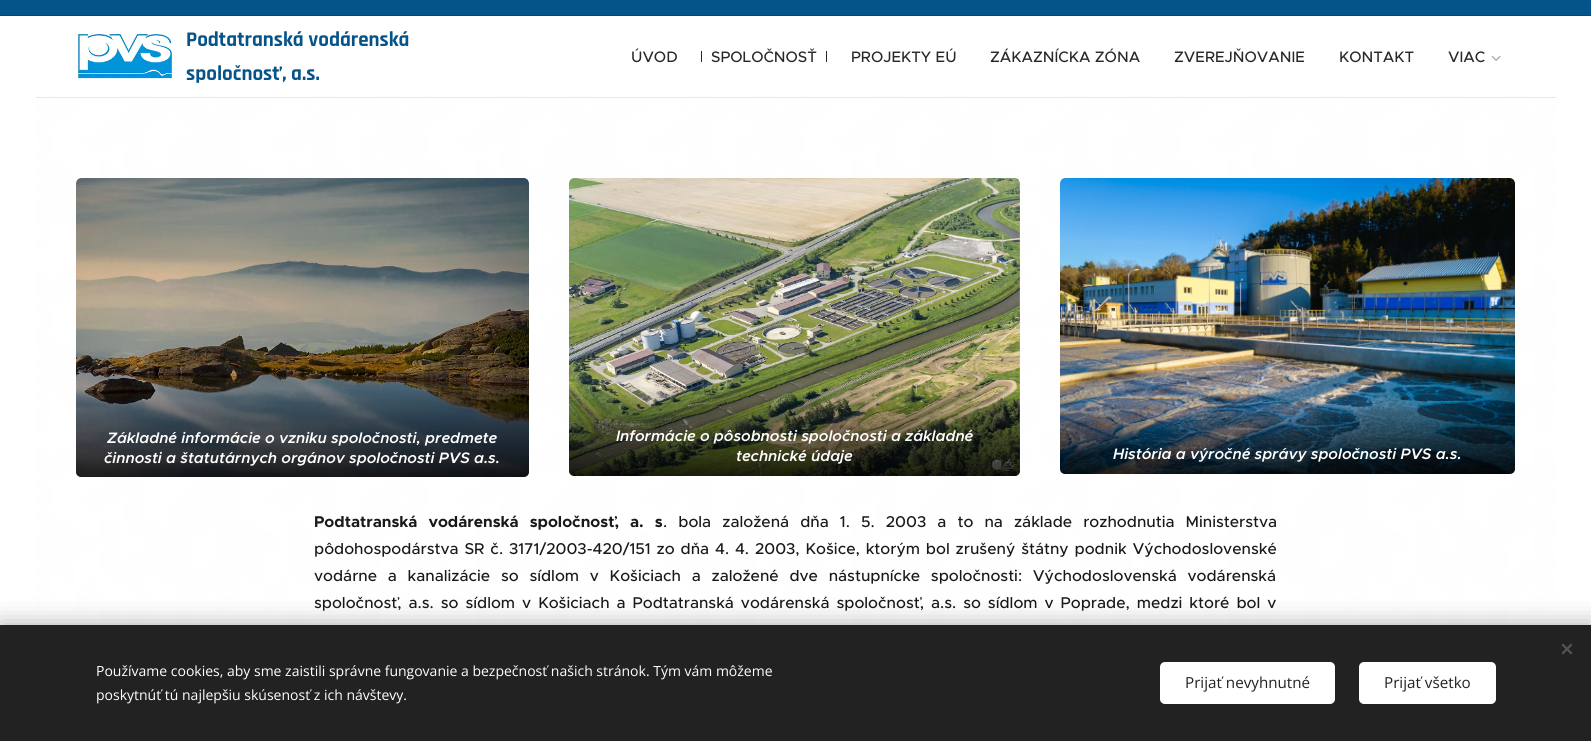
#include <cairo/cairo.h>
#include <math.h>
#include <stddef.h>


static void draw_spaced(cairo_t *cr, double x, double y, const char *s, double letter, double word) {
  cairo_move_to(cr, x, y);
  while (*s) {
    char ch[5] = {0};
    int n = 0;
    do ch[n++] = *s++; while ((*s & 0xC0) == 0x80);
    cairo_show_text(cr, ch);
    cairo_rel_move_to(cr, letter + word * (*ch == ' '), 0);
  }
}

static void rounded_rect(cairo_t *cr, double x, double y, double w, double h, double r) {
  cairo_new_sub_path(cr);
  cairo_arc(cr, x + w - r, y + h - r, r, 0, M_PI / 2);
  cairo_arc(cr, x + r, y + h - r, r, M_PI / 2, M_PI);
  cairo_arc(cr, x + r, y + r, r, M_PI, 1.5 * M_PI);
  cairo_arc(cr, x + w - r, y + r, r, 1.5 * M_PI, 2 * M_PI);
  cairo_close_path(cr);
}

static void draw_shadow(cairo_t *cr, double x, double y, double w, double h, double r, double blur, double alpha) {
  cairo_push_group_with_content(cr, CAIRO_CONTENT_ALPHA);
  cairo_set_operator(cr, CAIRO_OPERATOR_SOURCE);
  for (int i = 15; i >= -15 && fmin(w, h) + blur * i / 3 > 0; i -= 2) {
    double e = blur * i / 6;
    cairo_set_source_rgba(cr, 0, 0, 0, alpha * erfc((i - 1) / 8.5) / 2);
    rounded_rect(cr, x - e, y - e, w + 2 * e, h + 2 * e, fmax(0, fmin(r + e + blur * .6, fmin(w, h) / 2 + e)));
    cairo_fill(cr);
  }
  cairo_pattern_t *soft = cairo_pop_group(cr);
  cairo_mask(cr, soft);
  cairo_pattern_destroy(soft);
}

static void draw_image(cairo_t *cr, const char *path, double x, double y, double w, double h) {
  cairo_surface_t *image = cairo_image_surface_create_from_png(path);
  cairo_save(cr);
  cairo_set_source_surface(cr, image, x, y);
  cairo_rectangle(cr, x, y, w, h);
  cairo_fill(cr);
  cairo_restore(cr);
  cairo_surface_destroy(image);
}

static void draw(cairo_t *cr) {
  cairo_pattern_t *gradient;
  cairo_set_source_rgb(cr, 1, 1, 1);
  cairo_paint(cr);
  cairo_set_source_rgb(cr, 4 / 255.0, 83 / 255.0, 137 / 255.0);
  cairo_rectangle(cr, 0, 0, 1591, 15);
  cairo_fill(cr);
  cairo_set_source_rgb(cr, 3 / 255.0, 71 / 255.0, 116 / 255.0);
  cairo_rectangle(cr, 0, 15, 1591, 1);
  cairo_fill(cr);
  draw_image(cr, "images/1.png", 78, 34, 94, 45);
  cairo_set_source_rgb(cr, 40 / 255.0, 40 / 255.0, 40 / 255.0);
  cairo_rectangle(cr, 701, 51, 1, 11);
  cairo_fill(cr);
  cairo_rectangle(cr, 826, 51, 1, 11);
  cairo_fill(cr);
  draw_image(cr, "images/2.png", 1491, 55, 10, 6);
  cairo_set_source_rgb(cr, 232 / 255.0, 232 / 255.0, 232 / 255.0);
  cairo_rectangle(cr, 36, 97, 1520, 1);
  cairo_fill(cr);
  draw_image(cr, "images/3.png", 36, 98, 1520, 527);
  draw_image(cr, "images/4.png", 76, 178, 453, 299);
  gradient = cairo_pattern_create_linear(303, 388, 303, 477);
  cairo_pattern_add_color_stop_rgba(gradient, 0, 0, 0, 0, 0);
  cairo_pattern_add_color_stop_rgba(gradient, 1, 0, 0, 0, 0.8);
  cairo_set_source(cr, gradient);
  cairo_pattern_destroy(gradient);
  rounded_rect(cr, 76, 388, 453, 89, 5);
  cairo_fill(cr);
  draw_image(cr, "images/5.png", 569, 178, 451, 298);
  gradient = cairo_pattern_create_linear(795, 386, 795, 476);
  cairo_pattern_add_color_stop_rgba(gradient, 0, 0, 0, 0, 0);
  cairo_pattern_add_color_stop_rgba(gradient, 1, 0, 0, 0, 0.8);
  cairo_set_source(cr, gradient);
  cairo_pattern_destroy(gradient);
  rounded_rect(cr, 569, 386, 451, 90, 5);
  cairo_fill(cr);
  draw_image(cr, "images/6.png", 1060, 178, 455, 296);
  gradient = cairo_pattern_create_linear(1288, 404, 1288, 474);
  cairo_pattern_add_color_stop_rgba(gradient, 0, 0, 0, 0, 0);
  cairo_pattern_add_color_stop_rgba(gradient, 1, 0, 0, 0, 0.8);
  cairo_set_source(cr, gradient);
  cairo_pattern_destroy(gradient);
  rounded_rect(cr, 1060, 404, 455, 70, 5);
  cairo_fill(cr);
  cairo_set_source_rgb(cr, 0, 0, 0);
  draw_shadow(cr, 0, 625, 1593, 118, 0, 12.5, 0.33);
  cairo_set_source_rgb(cr, 34 / 255.0, 34 / 255.0, 34 / 255.0);
  cairo_rectangle(cr, 0, 625, 1591, 116);
  cairo_fill(cr);
  cairo_set_source_rgb(cr, 85 / 255.0, 85 / 255.0, 85 / 255.0);
  cairo_new_path(cr);
  cairo_move_to(cr, 1561.5, 653);
  cairo_line_to(cr, 1571, 643.5);
  cairo_line_to(cr, 1572.5, 645);
  cairo_line_to(cr, 1563, 654.5);
  cairo_close_path(cr);
  cairo_fill(cr);
  cairo_new_path(cr);
  cairo_move_to(cr, 1563, 643.5);
  cairo_line_to(cr, 1572.5, 653);
  cairo_line_to(cr, 1571, 654.5);
  cairo_line_to(cr, 1561.5, 645);
  cairo_close_path(cr);
  cairo_fill(cr);
  cairo_set_source_rgb(cr, 1, 1, 1);
  rounded_rect(cr, 1160, 662, 175, 42, 5);
  cairo_fill(cr);
  rounded_rect(cr, 1359, 662, 137, 42, 5);
  cairo_fill(cr);
  cairo_select_font_face(cr, "Rajdhani", CAIRO_FONT_SLANT_NORMAL, CAIRO_FONT_WEIGHT_BOLD);
  cairo_set_font_size(cr, 21);
  cairo_set_source_rgb(cr, 4 / 255.0, 83 / 255.0, 137 / 255.0);
  cairo_move_to(cr, 186, 46);
  cairo_show_text(cr, "Podtatranská vodárenská");
  cairo_move_to(cr, 186, 80);
  cairo_show_text(cr, "spoločnosť, a.s.");
  cairo_select_font_face(cr, "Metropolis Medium", CAIRO_FONT_SLANT_NORMAL, CAIRO_FONT_WEIGHT_NORMAL);
  cairo_set_font_size(cr, 15.2);
  cairo_set_source_rgb(cr, 40 / 255.0, 40 / 255.0, 40 / 255.0);
  cairo_move_to(cr, 631, 62);
  cairo_show_text(cr, "ÚVOD");
  cairo_move_to(cr, 711, 62);
  cairo_show_text(cr, "SPOLOČNOSŤ");
  cairo_move_to(cr, 851, 62);
  cairo_show_text(cr, "PROJEKTY EÚ");
  cairo_move_to(cr, 990, 62);
  cairo_show_text(cr, "ZÁKAZNÍCKA ZÓNA");
  cairo_move_to(cr, 1174, 62);
  cairo_show_text(cr, "ZVEREJŇOVANIE");
  cairo_move_to(cr, 1339, 62);
  cairo_show_text(cr, "KONTAKT");
  cairo_move_to(cr, 1448, 62);
  cairo_show_text(cr, "VIAC");
  cairo_select_font_face(cr, "Metropolis SemiBold", CAIRO_FONT_SLANT_ITALIC, CAIRO_FONT_WEIGHT_NORMAL);
  cairo_set_source_rgb(cr, 1, 1, 1);
  cairo_move_to(cr, 107, 443);
  cairo_show_text(cr, "Základné informácie o vzniku spoločnosti, predmete");
  cairo_move_to(cr, 104, 463);
  cairo_show_text(cr, "činnosti a štatutárnych orgánov spoločnosti PVS a.s.");
  cairo_move_to(cr, 616, 441);
  cairo_show_text(cr, "Informácie o pôsobnosti spoločnosti a základné");
  cairo_move_to(cr, 736, 461);
  cairo_show_text(cr, "technické údaje");
  cairo_move_to(cr, 1113, 459);
  cairo_show_text(cr, "História a výročné správy spoločnosti PVS a.s.");
  cairo_select_font_face(cr, "Metropolis", CAIRO_FONT_SLANT_NORMAL, CAIRO_FONT_WEIGHT_BOLD);
  cairo_set_font_size(cr, 15.7);
  cairo_set_source_rgb(cr, 25 / 255.0, 25 / 255.0, 25 / 255.0);
  draw_spaced(cr, 314, 527, "Podtatranská vodárenská spoločnosť, a. s", 0, 6.6);
  cairo_select_font_face(cr, "Metropolis Medium", CAIRO_FONT_SLANT_NORMAL, CAIRO_FONT_WEIGHT_NORMAL);
  draw_spaced(cr, 663, 527, ". bola založená dňa 1. 5. 2003 a to na základe rozhodnutia Ministerstva", 0, 6.6);
  draw_spaced(cr, 314, 554, "pôdohospodárstva SR č. 3171/2003-420/151 zo dňa 4. 4. 2003, Košice, ktorým bol zrušený štátny podnik Východoslovenské", 0, 1.4);
  draw_spaced(cr, 314, 581, "vodárne a kanalizácie so sídlom v Košiciach a založené dve nástupnícke spoločnosti: Východoslovenská vodárenská", 0, 6.25);
  draw_spaced(cr, 314, 608, "spoločnosť, a.s. so sídlom v Košiciach a Podtatranská vodárenská spoločnosť, a.s. so sídlom v Poprade, medzi ktoré bol v", 0, 2.5);
  cairo_select_font_face(cr, "Open Sans", CAIRO_FONT_SLANT_NORMAL, CAIRO_FONT_WEIGHT_NORMAL);
  cairo_set_font_size(cr, 14);
  cairo_set_source_rgb(cr, 1, 1, 1);
  cairo_move_to(cr, 96, 676);
  cairo_show_text(cr, "Používame cookies, aby sme zaistili správne fungovanie a bezpečnosť našich stránok. Tým vám môžeme");
  cairo_move_to(cr, 96, 700);
  cairo_show_text(cr, "poskytnúť tú najlepšiu skúsenosť z ich návštevy.");
  cairo_set_font_size(cr, 15.2);
  cairo_set_source_rgb(cr, 34 / 255.0, 34 / 255.0, 34 / 255.0);
  cairo_move_to(cr, 1185, 688);
  cairo_show_text(cr, "Prijať nevyhnutné");
  cairo_move_to(cr, 1384, 688);
  cairo_show_text(cr, "Prijať všetko");
}

int main(void) {
  cairo_surface_t *surface = cairo_image_surface_create(CAIRO_FORMAT_RGB24, 1591, 741);
  cairo_t *cr = cairo_create(surface);
  cairo_font_options_t *options = cairo_font_options_create();
  cairo_font_options_set_hint_metrics(options, CAIRO_HINT_METRICS_OFF);
  cairo_font_options_set_hint_style(options, CAIRO_HINT_STYLE_NONE);
  cairo_set_font_options(cr, options);
  cairo_set_miter_limit(cr, 4);
  draw(cr);
  cairo_surface_write_to_png(surface, "out.png");
  cairo_font_options_destroy(options);
  cairo_destroy(cr);
  cairo_surface_destroy(surface);
  return 0;
}
